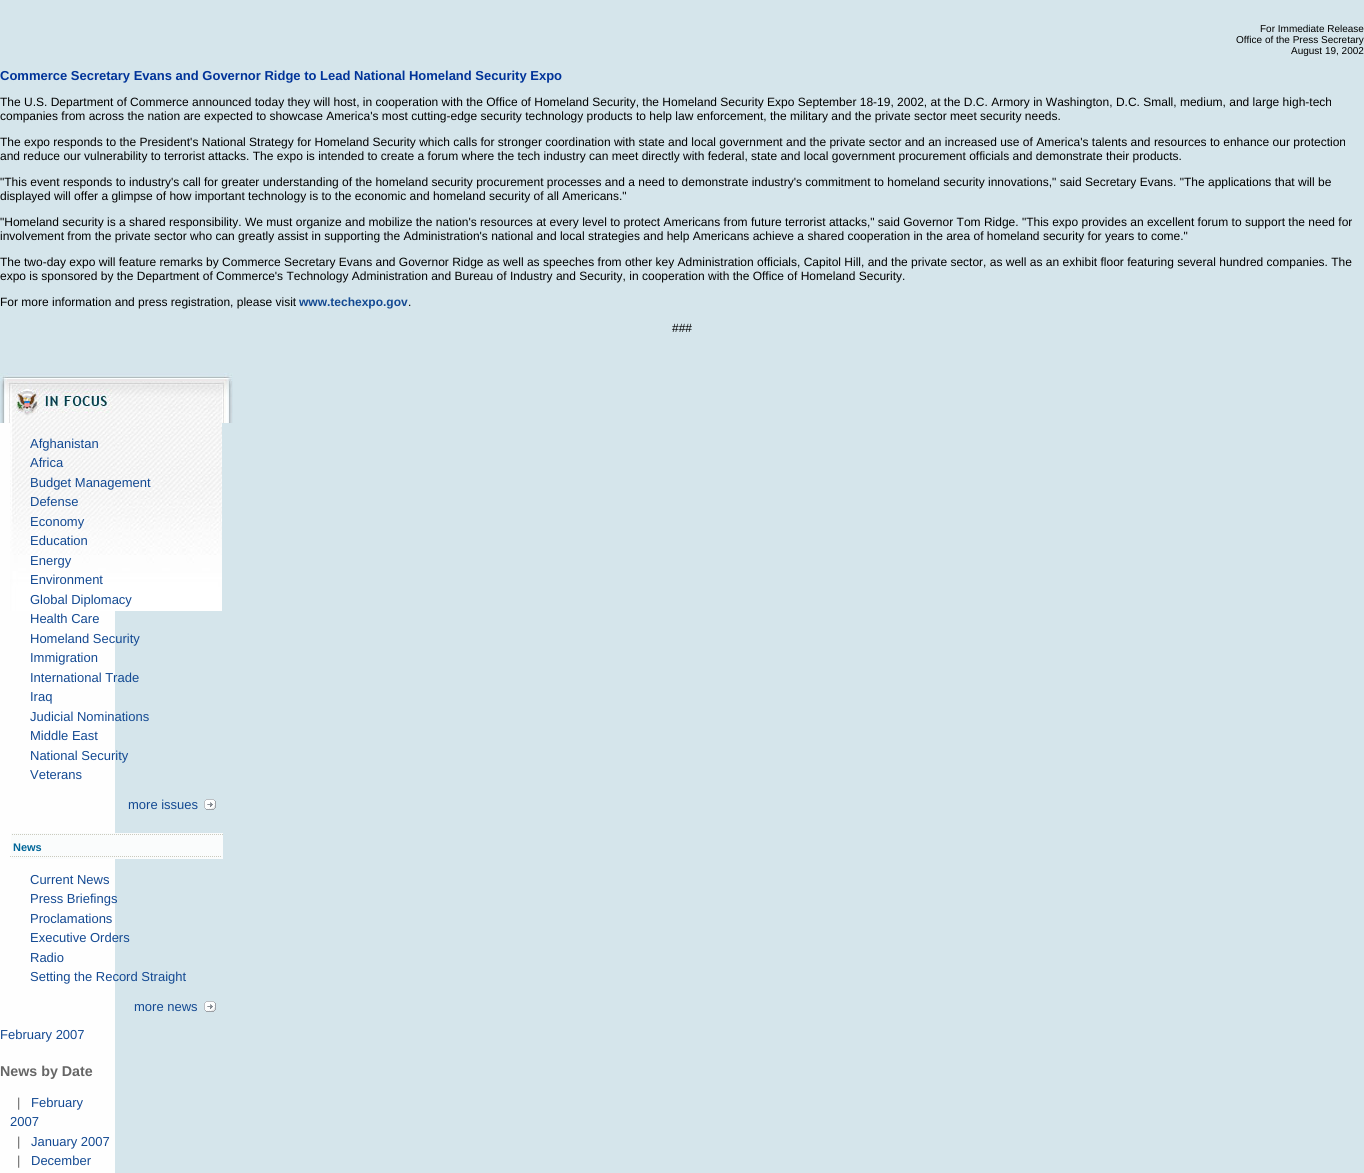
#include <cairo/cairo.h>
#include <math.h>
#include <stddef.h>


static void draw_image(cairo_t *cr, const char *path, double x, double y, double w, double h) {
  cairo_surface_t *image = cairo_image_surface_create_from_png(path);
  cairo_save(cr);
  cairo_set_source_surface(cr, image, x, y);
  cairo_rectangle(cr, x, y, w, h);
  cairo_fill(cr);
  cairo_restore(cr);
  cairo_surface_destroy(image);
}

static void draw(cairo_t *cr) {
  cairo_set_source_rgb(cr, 213 / 255.0, 229 / 255.0, 235 / 255.0);
  cairo_paint(cr);
  cairo_set_source_rgb(cr, 254 / 255.0, 254 / 255.0, 254 / 255.0);
  cairo_rectangle(cr, 0, 423, 115, 750);
  cairo_fill(cr);
  draw_image(cr, "images/1.png", 0, 373, 233, 50);
  draw_image(cr, "images/2.png", 10, 419, 212, 192);
  draw_image(cr, "images/3.png", 204, 799, 12, 11);
  cairo_set_source_rgb(cr, 250 / 255.0, 252 / 255.0, 252 / 255.0);
  cairo_rectangle(cr, 11, 833, 212, 26);
  cairo_fill(cr);
  draw_image(cr, "images/4.png", 12, 834, 211, 1);
  draw_image(cr, "images/5.png", 10, 856, 211, 1);
  draw_image(cr, "images/3.png", 204, 1001, 12, 11);
  cairo_select_font_face(cr, "Liberation Sans", CAIRO_FONT_SLANT_NORMAL, CAIRO_FONT_WEIGHT_NORMAL);
  cairo_set_font_size(cr, 10);
  cairo_set_source_rgb(cr, 0, 0, 0);
  cairo_move_to(cr, 1260, 32);
  cairo_show_text(cr, "For Immediate Release");
  cairo_move_to(cr, 1236, 43);
  cairo_show_text(cr, "Office of the Press Secretary");
  cairo_move_to(cr, 1291, 54);
  cairo_show_text(cr, "August 19, 2002");
  cairo_select_font_face(cr, "Liberation Sans", CAIRO_FONT_SLANT_NORMAL, CAIRO_FONT_WEIGHT_BOLD);
  cairo_set_font_size(cr, 13);
  cairo_set_source_rgb(cr, 0, 51 / 255.0, 153 / 255.0);
  cairo_move_to(cr, 0, 80);
  cairo_show_text(cr, "Commerce Secretary Evans and Governor Ridge to Lead National Homeland Security Expo");
  cairo_select_font_face(cr, "Liberation Sans", CAIRO_FONT_SLANT_NORMAL, CAIRO_FONT_WEIGHT_NORMAL);
  cairo_set_font_size(cr, 12);
  cairo_set_source_rgb(cr, 0, 0, 0);
  cairo_move_to(cr, 0, 106);
  cairo_show_text(cr, "The U.S. Department of Commerce announced today they will host, in cooperation with the Office of Homeland Security, the Homeland Security Expo September 18-19, 2002, at the D.C. Armory in Washington, D.C. Small, medium, and large high-tech");
  cairo_move_to(cr, 0, 120);
  cairo_show_text(cr, "companies from across the nation are expected to showcase America's most cutting-edge security technology products to help law enforcement, the military and the private sector meet security needs.");
  cairo_move_to(cr, 0, 146);
  cairo_show_text(cr, "The expo responds to the President's National Strategy for Homeland Security which calls for stronger coordination with state and local government and the private sector and an increased use of America's talents and resources to enhance our protection");
  cairo_move_to(cr, 0, 160);
  cairo_show_text(cr, "and reduce our vulnerability to terrorist attacks. The expo is intended to create a forum where the tech industry can meet directly with federal, state and local government procurement officials and demonstrate their products.");
  cairo_move_to(cr, 0, 186);
  cairo_show_text(cr, "\"This event responds to industry's call for greater understanding of the homeland security procurement processes and a need to demonstrate industry's commitment to homeland security innovations,\" said Secretary Evans. \"The applications that will be");
  cairo_move_to(cr, 0, 200);
  cairo_show_text(cr, "displayed will offer a glimpse of how important technology is to the economic and homeland security of all Americans.\"");
  cairo_move_to(cr, 0, 226);
  cairo_show_text(cr, "\"Homeland security is a shared responsibility. We must organize and mobilize the nation's resources at every level to protect Americans from future terrorist attacks,\" said Governor Tom Ridge. \"This expo provides an excellent forum to support the need for");
  cairo_move_to(cr, 0, 240);
  cairo_show_text(cr, "involvement from the private sector who can greatly assist in supporting the Administration's national and local strategies and help Americans achieve a shared cooperation in the area of homeland security for years to come.\"");
  cairo_move_to(cr, 0, 266);
  cairo_show_text(cr, "The two-day expo will feature remarks by Commerce Secretary Evans and Governor Ridge as well as speeches from other key Administration officials, Capitol Hill, and the private sector, as well as an exhibit floor featuring several hundred companies. The");
  cairo_move_to(cr, 0, 280);
  cairo_show_text(cr, "expo is sponsored by the Department of Commerce's Technology Administration and Bureau of Industry and Security, in cooperation with the Office of Homeland Security.");
  cairo_move_to(cr, 0, 306);
  cairo_show_text(cr, "For more information and press registration, please visit");
  cairo_select_font_face(cr, "Liberation Sans", CAIRO_FONT_SLANT_NORMAL, CAIRO_FONT_WEIGHT_BOLD);
  cairo_set_source_rgb(cr, 19 / 255.0, 73 / 255.0, 146 / 255.0);
  cairo_move_to(cr, 299, 306);
  cairo_show_text(cr, "www.techexpo.gov");
  cairo_select_font_face(cr, "Liberation Sans", CAIRO_FONT_SLANT_NORMAL, CAIRO_FONT_WEIGHT_NORMAL);
  cairo_set_source_rgb(cr, 0, 0, 0);
  cairo_move_to(cr, 408, 306);
  cairo_show_text(cr, ".");
  cairo_move_to(cr, 672, 332);
  cairo_show_text(cr, "###");
  cairo_set_font_size(cr, 13);
  cairo_set_source_rgb(cr, 19 / 255.0, 73 / 255.0, 146 / 255.0);
  cairo_move_to(cr, 30, 448);
  cairo_show_text(cr, "Afghanistan");
  cairo_move_to(cr, 30, 467);
  cairo_show_text(cr, "Africa");
  cairo_move_to(cr, 30, 487);
  cairo_show_text(cr, "Budget Management");
  cairo_move_to(cr, 30, 506);
  cairo_show_text(cr, "Defense");
  cairo_move_to(cr, 30, 526);
  cairo_show_text(cr, "Economy");
  cairo_move_to(cr, 30, 545);
  cairo_show_text(cr, "Education");
  cairo_move_to(cr, 30, 565);
  cairo_show_text(cr, "Energy");
  cairo_move_to(cr, 30, 584);
  cairo_show_text(cr, "Environment");
  cairo_move_to(cr, 30, 604);
  cairo_show_text(cr, "Global Diplomacy");
  cairo_move_to(cr, 30, 623);
  cairo_show_text(cr, "Health Care");
  cairo_move_to(cr, 30, 643);
  cairo_show_text(cr, "Homeland Security");
  cairo_move_to(cr, 30, 662);
  cairo_show_text(cr, "Immigration");
  cairo_move_to(cr, 30, 682);
  cairo_show_text(cr, "International Trade");
  cairo_move_to(cr, 30, 701);
  cairo_show_text(cr, "Iraq");
  cairo_move_to(cr, 30, 721);
  cairo_show_text(cr, "Judicial Nominations");
  cairo_move_to(cr, 30, 740);
  cairo_show_text(cr, "Middle East");
  cairo_move_to(cr, 30, 760);
  cairo_show_text(cr, "National Security");
  cairo_move_to(cr, 30, 779);
  cairo_show_text(cr, "Veterans");
  cairo_move_to(cr, 128, 809);
  cairo_show_text(cr, "more issues");
  cairo_select_font_face(cr, "Liberation Sans", CAIRO_FONT_SLANT_NORMAL, CAIRO_FONT_WEIGHT_BOLD);
  cairo_set_font_size(cr, 11);
  cairo_set_source_rgb(cr, 0, 102 / 255.0, 153 / 255.0);
  cairo_move_to(cr, 13, 851);
  cairo_show_text(cr, "News");
  cairo_select_font_face(cr, "Liberation Sans", CAIRO_FONT_SLANT_NORMAL, CAIRO_FONT_WEIGHT_NORMAL);
  cairo_set_font_size(cr, 13);
  cairo_set_source_rgb(cr, 19 / 255.0, 73 / 255.0, 146 / 255.0);
  cairo_move_to(cr, 30, 884);
  cairo_show_text(cr, "Current News");
  cairo_move_to(cr, 30, 903);
  cairo_show_text(cr, "Press Briefings");
  cairo_move_to(cr, 30, 923);
  cairo_show_text(cr, "Proclamations");
  cairo_move_to(cr, 30, 942);
  cairo_show_text(cr, "Executive Orders");
  cairo_move_to(cr, 30, 962);
  cairo_show_text(cr, "Radio");
  cairo_move_to(cr, 30, 981);
  cairo_show_text(cr, "Setting the Record Straight");
  cairo_move_to(cr, 134, 1011);
  cairo_show_text(cr, "more news");
  cairo_move_to(cr, 0, 1039);
  cairo_show_text(cr, "February 2007");
  cairo_select_font_face(cr, "Liberation Sans", CAIRO_FONT_SLANT_NORMAL, CAIRO_FONT_WEIGHT_BOLD);
  cairo_set_font_size(cr, 14.25);
  cairo_set_source_rgb(cr, 102 / 255.0, 102 / 255.0, 102 / 255.0);
  cairo_move_to(cr, 0, 1076);
  cairo_show_text(cr, "News by Date");
  cairo_select_font_face(cr, "Liberation Sans", CAIRO_FONT_SLANT_NORMAL, CAIRO_FONT_WEIGHT_NORMAL);
  cairo_set_font_size(cr, 13);
  cairo_move_to(cr, 17, 1107);
  cairo_show_text(cr, "|");
  cairo_set_source_rgb(cr, 19 / 255.0, 73 / 255.0, 146 / 255.0);
  cairo_move_to(cr, 31, 1107);
  cairo_show_text(cr, "February");
  cairo_move_to(cr, 10, 1126);
  cairo_show_text(cr, "2007");
  cairo_set_source_rgb(cr, 102 / 255.0, 102 / 255.0, 102 / 255.0);
  cairo_move_to(cr, 17, 1146);
  cairo_show_text(cr, "|");
  cairo_set_source_rgb(cr, 19 / 255.0, 73 / 255.0, 146 / 255.0);
  cairo_move_to(cr, 31, 1146);
  cairo_show_text(cr, "January 2007");
  cairo_set_source_rgb(cr, 102 / 255.0, 102 / 255.0, 102 / 255.0);
  cairo_move_to(cr, 17, 1165);
  cairo_show_text(cr, "|");
  cairo_set_source_rgb(cr, 19 / 255.0, 73 / 255.0, 146 / 255.0);
  cairo_move_to(cr, 31, 1165);
  cairo_show_text(cr, "December");
}

int main(void) {
  cairo_surface_t *surface = cairo_image_surface_create(CAIRO_FORMAT_RGB24, 1364, 1173);
  cairo_t *cr = cairo_create(surface);
  cairo_font_options_t *options = cairo_font_options_create();
  cairo_font_options_set_hint_metrics(options, CAIRO_HINT_METRICS_OFF);
  cairo_font_options_set_hint_style(options, CAIRO_HINT_STYLE_NONE);
  cairo_set_font_options(cr, options);
  cairo_set_miter_limit(cr, 4);
  draw(cr);
  cairo_surface_write_to_png(surface, "out.png");
  cairo_font_options_destroy(options);
  cairo_destroy(cr);
  cairo_surface_destroy(surface);
  return 0;
}
